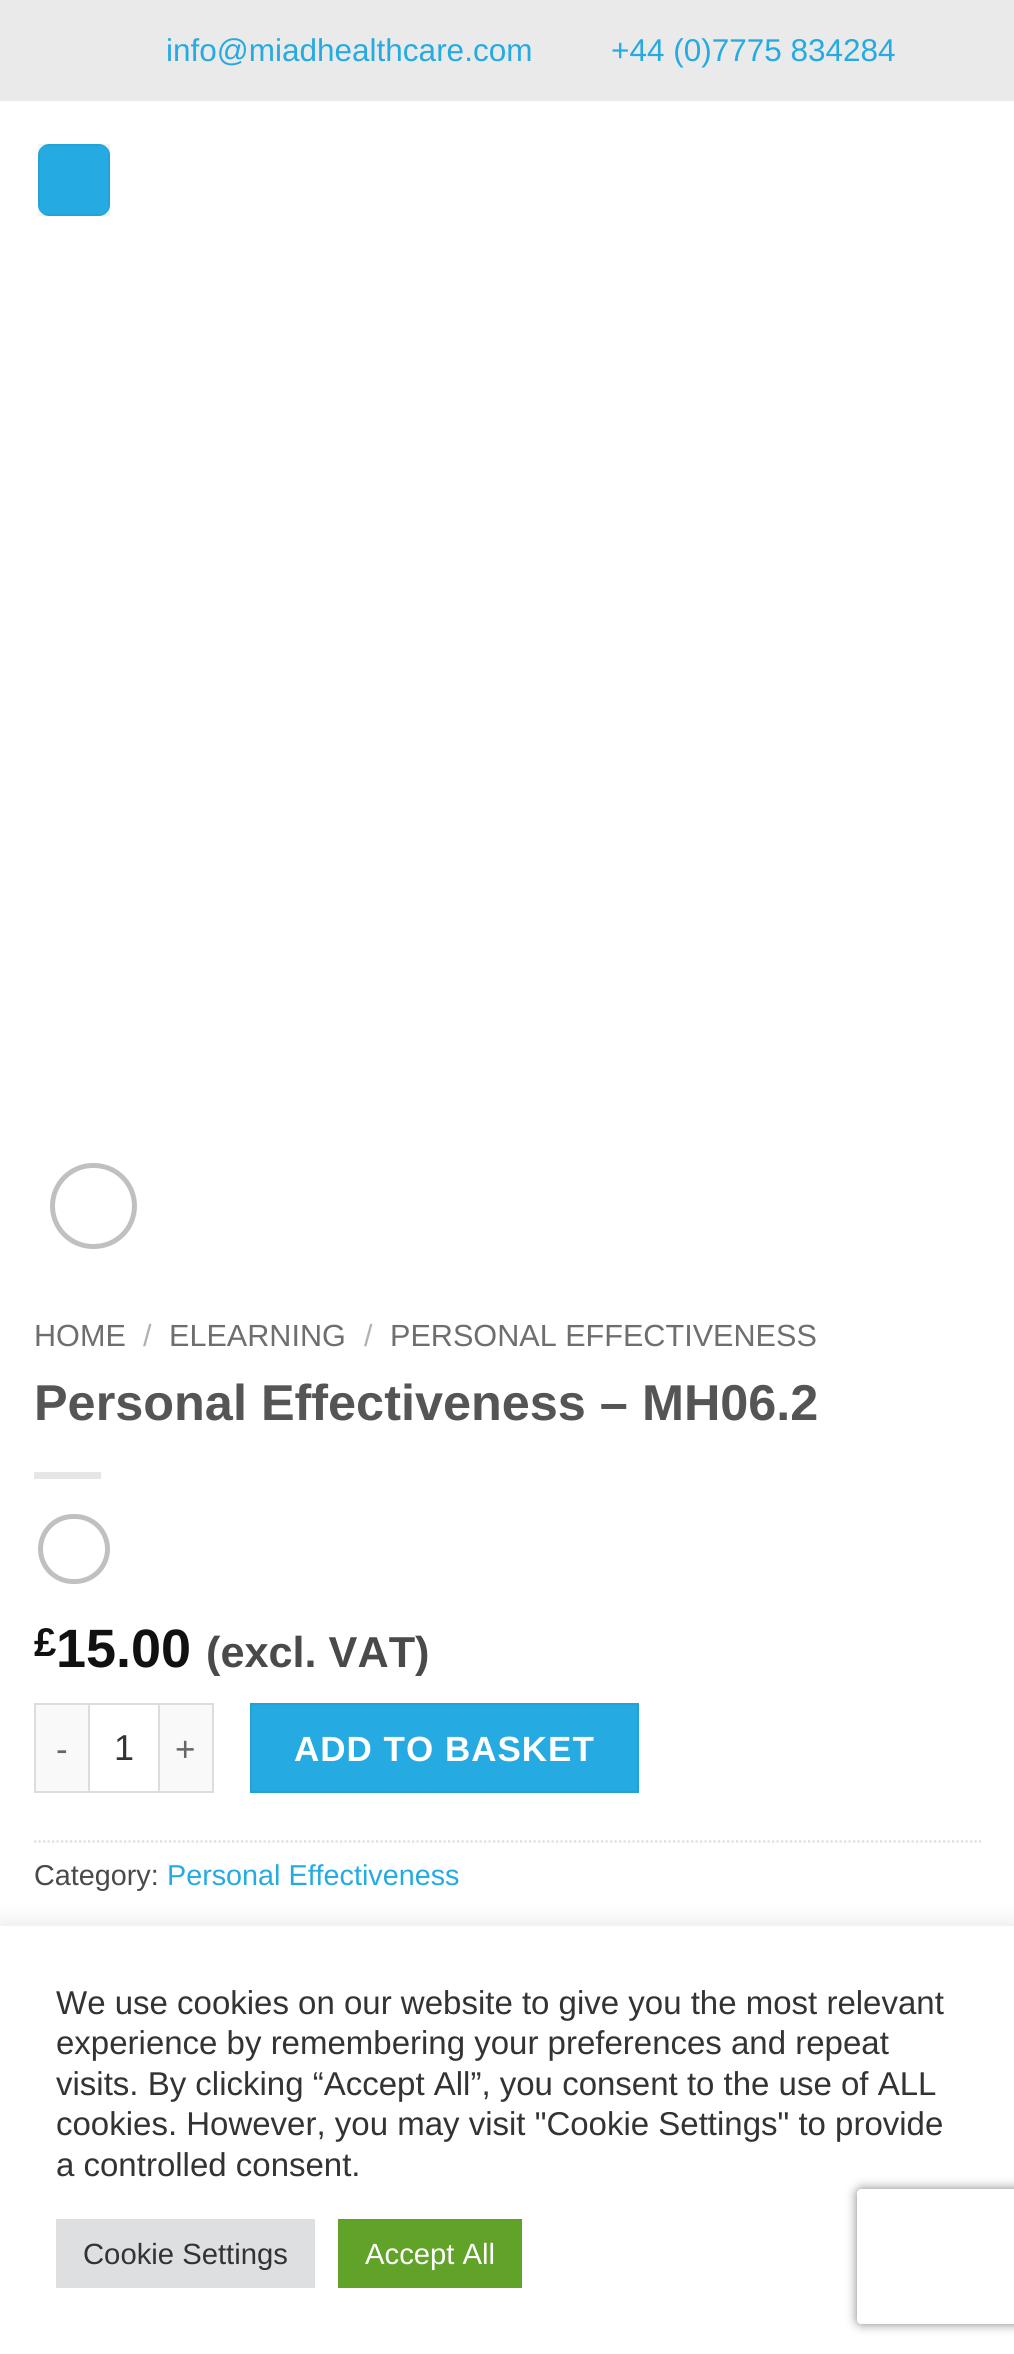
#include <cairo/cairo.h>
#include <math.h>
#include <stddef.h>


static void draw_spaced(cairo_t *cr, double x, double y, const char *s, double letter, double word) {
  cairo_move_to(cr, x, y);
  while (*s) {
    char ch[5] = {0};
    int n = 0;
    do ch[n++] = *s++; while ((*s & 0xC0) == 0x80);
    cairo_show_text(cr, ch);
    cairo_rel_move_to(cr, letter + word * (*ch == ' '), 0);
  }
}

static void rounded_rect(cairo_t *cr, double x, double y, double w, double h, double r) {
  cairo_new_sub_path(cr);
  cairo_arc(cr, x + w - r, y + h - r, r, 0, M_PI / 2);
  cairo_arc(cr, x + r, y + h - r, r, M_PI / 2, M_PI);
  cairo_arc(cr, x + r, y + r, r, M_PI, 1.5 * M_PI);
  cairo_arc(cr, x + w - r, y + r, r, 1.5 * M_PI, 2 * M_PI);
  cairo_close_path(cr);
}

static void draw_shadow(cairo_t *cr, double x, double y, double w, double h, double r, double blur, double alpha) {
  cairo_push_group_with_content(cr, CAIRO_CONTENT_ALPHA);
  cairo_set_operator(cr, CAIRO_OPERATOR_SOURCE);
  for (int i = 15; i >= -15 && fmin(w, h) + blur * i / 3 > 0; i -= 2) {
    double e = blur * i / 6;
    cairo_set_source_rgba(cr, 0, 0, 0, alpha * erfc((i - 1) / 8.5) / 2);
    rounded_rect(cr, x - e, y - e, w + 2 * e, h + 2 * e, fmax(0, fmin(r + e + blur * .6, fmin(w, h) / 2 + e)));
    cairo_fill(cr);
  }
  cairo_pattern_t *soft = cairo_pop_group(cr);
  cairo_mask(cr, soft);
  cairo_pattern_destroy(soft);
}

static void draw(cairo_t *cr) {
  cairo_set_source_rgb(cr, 1, 1, 1);
  cairo_paint(cr);
  cairo_set_source_rgb(cr, 234 / 255.0, 234 / 255.0, 234 / 255.0);
  cairo_rectangle(cr, 0, 0, 1014, 101);
  cairo_fill(cr);
  cairo_set_source_rgb(cr, 37 / 255.0, 170 / 255.0, 225 / 255.0);
  rounded_rect(cr, 38, 144, 72, 72, 11);
  cairo_fill(cr);
  cairo_rectangle(cr, 39, 145, 70, 70);
  cairo_set_source_rgba(cr, 0, 0, 0, 0.05);
  cairo_stroke(cr);
  rounded_rect(cr, 52.5, 1165.5, 82, 81, 40.5);
  cairo_set_source_rgb(cr, 192 / 255.0, 192 / 255.0, 192 / 255.0);
  cairo_set_line_width(cr, 5);
  cairo_stroke(cr);
  cairo_set_source_rgb(cr, 230 / 255.0, 230 / 255.0, 230 / 255.0);
  cairo_rectangle(cr, 34, 1472, 67, 7);
  cairo_fill(cr);
  rounded_rect(cr, 40.5, 1516.5, 67, 65, 32.5);
  cairo_set_source_rgb(cr, 192 / 255.0, 192 / 255.0, 192 / 255.0);
  cairo_stroke(cr);
  cairo_set_source_rgb(cr, 249 / 255.0, 249 / 255.0, 249 / 255.0);
  cairo_rectangle(cr, 36, 1705, 52, 86);
  cairo_fill(cr);
  cairo_set_source_rgb(cr, 221 / 255.0, 221 / 255.0, 221 / 255.0);
  cairo_rectangle(cr, 34, 1703, 54, 2);
  cairo_fill(cr);
  cairo_rectangle(cr, 34, 1791, 54, 2);
  cairo_fill(cr);
  cairo_rectangle(cr, 34, 1703, 2, 90);
  cairo_fill(cr);
  cairo_rectangle(cr, 89, 1704, 70, 88);
  cairo_set_line_width(cr, 2);
  cairo_stroke(cr);
  cairo_set_source_rgb(cr, 249 / 255.0, 249 / 255.0, 249 / 255.0);
  cairo_rectangle(cr, 160, 1705, 52, 86);
  cairo_fill(cr);
  cairo_set_source_rgb(cr, 221 / 255.0, 221 / 255.0, 221 / 255.0);
  cairo_rectangle(cr, 160, 1703, 54, 2);
  cairo_fill(cr);
  cairo_rectangle(cr, 212, 1703, 2, 90);
  cairo_fill(cr);
  cairo_rectangle(cr, 160, 1791, 54, 2);
  cairo_fill(cr);
  cairo_set_source_rgb(cr, 37 / 255.0, 170 / 255.0, 225 / 255.0);
  cairo_rectangle(cr, 251, 1704, 387, 88);
  cairo_fill_preserve(cr);
  cairo_set_source_rgb(cr, 35 / 255.0, 162 / 255.0, 214 / 255.0);
  cairo_stroke(cr);
  cairo_new_path(cr);
  cairo_move_to(cr, 34, 1841.5);
  cairo_line_to(cr, 981, 1841.5);
  cairo_set_source_rgb(cr, 221 / 255.0, 221 / 255.0, 221 / 255.0);
  cairo_set_line_width(cr, 2.2);
  cairo_set_dash(cr, (double[]){2.25, 2.25}, 2, 0);
  cairo_stroke(cr);
  cairo_set_source_rgb(cr, 172 / 255.0, 171 / 255.0, 171 / 255.0);
  draw_shadow(cr, 0, 1924, 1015, 430, 0, 11, 0.3);
  cairo_set_source_rgb(cr, 1, 1, 1);
  cairo_rectangle(cr, 0, 1926, 1014, 428);
  cairo_fill(cr);
  cairo_set_source_rgb(cr, 222 / 255.0, 223 / 255.0, 224 / 255.0);
  cairo_rectangle(cr, 56, 2219, 259, 69);
  cairo_fill(cr);
  cairo_set_source_rgb(cr, 97 / 255.0, 162 / 255.0, 41 / 255.0);
  cairo_rectangle(cr, 338, 2219, 184, 69);
  cairo_fill(cr);
  cairo_save(cr);
  cairo_set_fill_rule(cr, CAIRO_FILL_RULE_EVEN_ODD);
  cairo_new_path(cr);
  cairo_move_to(cr, 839, 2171);
  cairo_line_to(cr, 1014, 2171);
  cairo_line_to(cr, 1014, 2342);
  cairo_line_to(cr, 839, 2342);
  cairo_close_path(cr);
  cairo_move_to(cr, 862, 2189);
  cairo_line_to(cr, 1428, 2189);
  cairo_curve_to(cr, 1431, 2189, 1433, 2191, 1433, 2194);
  cairo_line_to(cr, 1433, 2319);
  cairo_curve_to(cr, 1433, 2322, 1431, 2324, 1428, 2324);
  cairo_line_to(cr, 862, 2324);
  cairo_curve_to(cr, 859, 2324, 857, 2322, 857, 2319);
  cairo_line_to(cr, 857, 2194);
  cairo_curve_to(cr, 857, 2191, 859, 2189, 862, 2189);
  cairo_close_path(cr);
  cairo_clip(cr);
  cairo_set_source_rgb(cr, 128 / 255.0, 128 / 255.0, 128 / 255.0);
  draw_shadow(cr, 857, 2189, 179, 135, 5, 5.5, 1);
  cairo_restore(cr);
  cairo_select_font_face(cr, "Liberation Sans", CAIRO_FONT_SLANT_NORMAL, CAIRO_FONT_WEIGHT_NORMAL);
  cairo_set_font_size(cr, 31.5);
  cairo_set_source_rgb(cr, 37 / 255.0, 170 / 255.0, 225 / 255.0);
  cairo_move_to(cr, 166, 61);
  cairo_show_text(cr, "info@miadhealthcare.com");
  cairo_move_to(cr, 611, 61);
  cairo_show_text(cr, "+44 (0)7775 834284");
  cairo_set_font_size(cr, 30.6);
  cairo_set_source_rgb(cr, 110 / 255.0, 110 / 255.0, 110 / 255.0);
  cairo_move_to(cr, 34, 1346);
  cairo_show_text(cr, "HOME");
  cairo_set_source_rgb(cr, 178 / 255.0, 178 / 255.0, 178 / 255.0);
  cairo_move_to(cr, 143, 1346);
  cairo_show_text(cr, "/");
  cairo_set_source_rgb(cr, 110 / 255.0, 110 / 255.0, 110 / 255.0);
  cairo_move_to(cr, 169, 1346);
  cairo_show_text(cr, "ELEARNING");
  cairo_set_source_rgb(cr, 178 / 255.0, 178 / 255.0, 178 / 255.0);
  cairo_move_to(cr, 364, 1346);
  cairo_show_text(cr, "/");
  cairo_set_source_rgb(cr, 110 / 255.0, 110 / 255.0, 110 / 255.0);
  cairo_move_to(cr, 390, 1346);
  cairo_show_text(cr, "PERSONAL EFFECTIVENESS");
  cairo_select_font_face(cr, "Liberation Sans", CAIRO_FONT_SLANT_NORMAL, CAIRO_FONT_WEIGHT_BOLD);
  cairo_set_font_size(cr, 50.4);
  cairo_set_source_rgb(cr, 85 / 255.0, 85 / 255.0, 85 / 255.0);
  cairo_move_to(cr, 34, 1420);
  cairo_show_text(cr, "Personal Effectiveness – MH06.2");
  cairo_set_font_size(cr, 40);
  cairo_set_source_rgb(cr, 17 / 255.0, 17 / 255.0, 17 / 255.0);
  cairo_move_to(cr, 34, 1656);
  cairo_show_text(cr, "£");
  cairo_set_font_size(cr, 54);
  cairo_move_to(cr, 56, 1667);
  cairo_show_text(cr, "15.00");
  cairo_set_font_size(cr, 43.25);
  cairo_set_source_rgb(cr, 74 / 255.0, 74 / 255.0, 74 / 255.0);
  cairo_move_to(cr, 206, 1667);
  cairo_show_text(cr, "(excl. VAT)");
  cairo_select_font_face(cr, "Liberation Sans", CAIRO_FONT_SLANT_NORMAL, CAIRO_FONT_WEIGHT_NORMAL);
  cairo_set_font_size(cr, 35);
  cairo_set_source_rgb(cr, 102 / 255.0, 102 / 255.0, 102 / 255.0);
  draw_spaced(cr, 56, 1761, "-", 1, 0);
  cairo_set_font_size(cr, 36);
  cairo_set_source_rgb(cr, 51 / 255.0, 51 / 255.0, 51 / 255.0);
  cairo_move_to(cr, 114, 1760);
  cairo_show_text(cr, "1");
  cairo_set_font_size(cr, 35);
  cairo_set_source_rgb(cr, 102 / 255.0, 102 / 255.0, 102 / 255.0);
  draw_spaced(cr, 175, 1761, "+", 1, 0);
  cairo_select_font_face(cr, "Liberation Sans", CAIRO_FONT_SLANT_NORMAL, CAIRO_FONT_WEIGHT_BOLD);
  cairo_set_source_rgb(cr, 1, 1, 1);
  draw_spaced(cr, 294, 1761, "ADD TO BASKET", 1, 0);
  cairo_select_font_face(cr, "Liberation Sans", CAIRO_FONT_SLANT_NORMAL, CAIRO_FONT_WEIGHT_NORMAL);
  cairo_set_font_size(cr, 28.75);
  cairo_set_source_rgb(cr, 74 / 255.0, 74 / 255.0, 74 / 255.0);
  cairo_move_to(cr, 34, 1885);
  cairo_show_text(cr, "Category:");
  cairo_set_source_rgb(cr, 37 / 255.0, 170 / 255.0, 225 / 255.0);
  cairo_move_to(cr, 167, 1885);
  cairo_show_text(cr, "Personal Effectiveness");
  cairo_set_font_size(cr, 33);
  cairo_set_source_rgb(cr, 51 / 255.0, 51 / 255.0, 51 / 255.0);
  cairo_move_to(cr, 56, 2014);
  cairo_show_text(cr, "We use cookies on our website to give you the most relevant");
  cairo_move_to(cr, 56, 2054);
  cairo_show_text(cr, "experience by remembering your preferences and repeat");
  cairo_move_to(cr, 56, 2095);
  cairo_show_text(cr, "visits. By clicking “Accept All”, you consent to the use of ALL");
  cairo_move_to(cr, 56, 2135);
  cairo_show_text(cr, "cookies. However, you may visit \"Cookie Settings\" to provide");
  cairo_move_to(cr, 56, 2176);
  cairo_show_text(cr, "a controlled consent.");
  cairo_set_font_size(cr, 29.25);
  cairo_move_to(cr, 83, 2264);
  cairo_show_text(cr, "Cookie Settings");
  cairo_set_source_rgb(cr, 1, 1, 1);
  cairo_move_to(cr, 365, 2264);
  cairo_show_text(cr, "Accept All");
}

int main(void) {
  cairo_surface_t *surface = cairo_image_surface_create(CAIRO_FORMAT_RGB24, 1014, 2354);
  cairo_t *cr = cairo_create(surface);
  cairo_font_options_t *options = cairo_font_options_create();
  cairo_font_options_set_hint_metrics(options, CAIRO_HINT_METRICS_OFF);
  cairo_font_options_set_hint_style(options, CAIRO_HINT_STYLE_NONE);
  cairo_set_font_options(cr, options);
  cairo_set_miter_limit(cr, 4);
  draw(cr);
  cairo_surface_write_to_png(surface, "out.png");
  cairo_font_options_destroy(options);
  cairo_destroy(cr);
  cairo_surface_destroy(surface);
  return 0;
}
